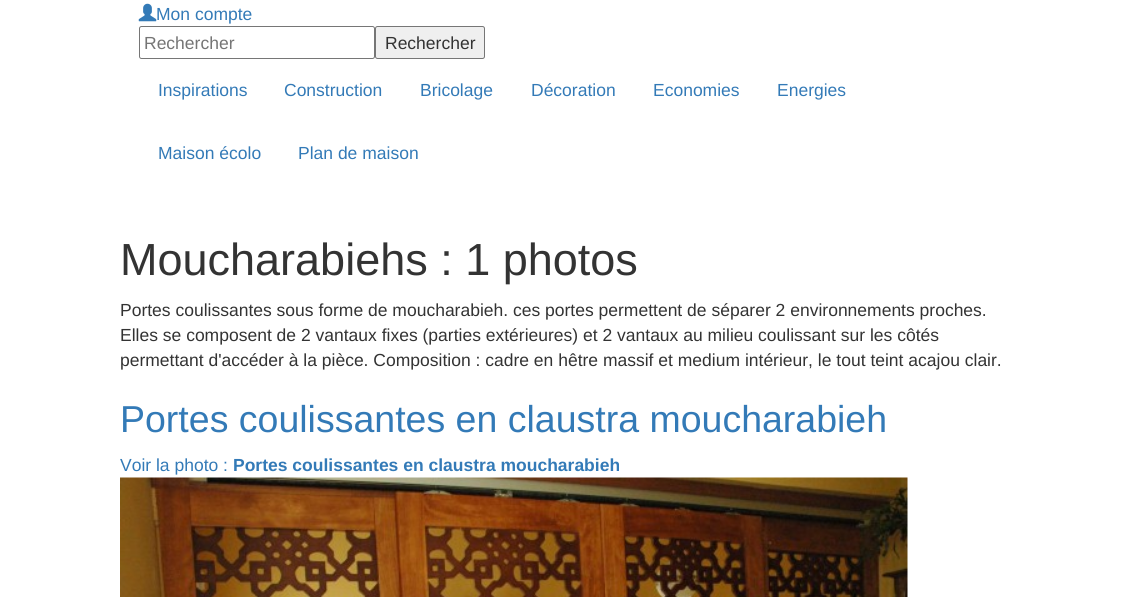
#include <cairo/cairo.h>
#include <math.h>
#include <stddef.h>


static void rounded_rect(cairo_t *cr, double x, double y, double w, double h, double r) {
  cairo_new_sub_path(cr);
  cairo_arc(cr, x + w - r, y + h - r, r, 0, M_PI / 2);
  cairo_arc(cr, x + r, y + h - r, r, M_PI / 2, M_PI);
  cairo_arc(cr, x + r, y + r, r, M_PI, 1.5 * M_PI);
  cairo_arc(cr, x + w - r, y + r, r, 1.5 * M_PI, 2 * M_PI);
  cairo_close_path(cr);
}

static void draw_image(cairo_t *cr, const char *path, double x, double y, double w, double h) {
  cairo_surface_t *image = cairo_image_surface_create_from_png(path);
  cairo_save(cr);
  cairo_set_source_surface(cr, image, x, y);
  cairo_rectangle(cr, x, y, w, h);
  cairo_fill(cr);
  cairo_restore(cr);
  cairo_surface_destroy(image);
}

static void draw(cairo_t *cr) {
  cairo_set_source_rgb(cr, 1, 1, 1);
  cairo_paint(cr);
  draw_image(cr, "images/1.png", 138, 3, 19, 19);
  rounded_rect(cr, 139.5, 26.5, 235, 32, 2);
  cairo_set_source_rgb(cr, 118 / 255.0, 118 / 255.0, 118 / 255.0);
  cairo_set_line_width(cr, 1);
  cairo_stroke(cr);
  cairo_set_source_rgb(cr, 239 / 255.0, 239 / 255.0, 239 / 255.0);
  rounded_rect(cr, 375.5, 26.5, 109, 32, 2);
  cairo_fill_preserve(cr);
  cairo_set_source_rgb(cr, 118 / 255.0, 118 / 255.0, 118 / 255.0);
  cairo_stroke(cr);
  draw_image(cr, "images/2.png", 120, 477, 788, 120);
  cairo_select_font_face(cr, "Liberation Sans", CAIRO_FONT_SLANT_NORMAL, CAIRO_FONT_WEIGHT_NORMAL);
  cairo_set_font_size(cr, 17.5);
  cairo_set_source_rgb(cr, 51 / 255.0, 122 / 255.0, 183 / 255.0);
  cairo_move_to(cr, 156, 20);
  cairo_show_text(cr, "Mon compte");
  cairo_set_source_rgb(cr, 117 / 255.0, 117 / 255.0, 117 / 255.0);
  cairo_move_to(cr, 144, 49);
  cairo_show_text(cr, "Rechercher");
  cairo_set_source_rgb(cr, 51 / 255.0, 51 / 255.0, 51 / 255.0);
  cairo_move_to(cr, 385, 49);
  cairo_show_text(cr, "Rechercher");
  cairo_set_source_rgb(cr, 51 / 255.0, 122 / 255.0, 183 / 255.0);
  cairo_move_to(cr, 158, 96);
  cairo_show_text(cr, "Inspirations");
  cairo_move_to(cr, 284, 96);
  cairo_show_text(cr, "Construction");
  cairo_move_to(cr, 420, 96);
  cairo_show_text(cr, "Bricolage");
  cairo_move_to(cr, 531, 96);
  cairo_show_text(cr, "Décoration");
  cairo_move_to(cr, 653, 96);
  cairo_show_text(cr, "Economies");
  cairo_move_to(cr, 777, 96);
  cairo_show_text(cr, "Energies");
  cairo_move_to(cr, 158, 159);
  cairo_show_text(cr, "Maison écolo");
  cairo_move_to(cr, 298, 159);
  cairo_show_text(cr, "Plan de maison");
  cairo_set_font_size(cr, 45);
  cairo_set_source_rgb(cr, 51 / 255.0, 51 / 255.0, 51 / 255.0);
  cairo_move_to(cr, 120, 275);
  cairo_show_text(cr, "Moucharabiehs : 1 photos");
  cairo_set_font_size(cr, 17.5);
  cairo_move_to(cr, 120, 316);
  cairo_show_text(cr, "Portes coulissantes sous forme de moucharabieh. ces portes permettent de séparer 2 environnements proches.");
  cairo_move_to(cr, 120, 341);
  cairo_show_text(cr, "Elles se composent de 2 vantaux fixes (parties extérieures) et 2 vantaux au milieu coulissant sur les côtés");
  cairo_move_to(cr, 120, 366);
  cairo_show_text(cr, "permettant d'accéder à la pièce. Composition : cadre en hêtre massif et medium intérieur, le tout teint acajou clair.");
  cairo_set_font_size(cr, 37.5);
  cairo_set_source_rgb(cr, 51 / 255.0, 122 / 255.0, 183 / 255.0);
  cairo_move_to(cr, 120, 432);
  cairo_show_text(cr, "Portes coulissantes en claustra moucharabieh");
  cairo_set_font_size(cr, 17.5);
  cairo_move_to(cr, 120, 471);
  cairo_show_text(cr, "Voir la photo :");
  cairo_select_font_face(cr, "Liberation Sans", CAIRO_FONT_SLANT_NORMAL, CAIRO_FONT_WEIGHT_BOLD);
  cairo_move_to(cr, 233, 471);
  cairo_show_text(cr, "Portes coulissantes en claustra moucharabieh");
}

int main(void) {
  cairo_surface_t *surface = cairo_image_surface_create(CAIRO_FORMAT_RGB24, 1139, 597);
  cairo_t *cr = cairo_create(surface);
  cairo_font_options_t *options = cairo_font_options_create();
  cairo_font_options_set_hint_metrics(options, CAIRO_HINT_METRICS_OFF);
  cairo_font_options_set_hint_style(options, CAIRO_HINT_STYLE_NONE);
  cairo_set_font_options(cr, options);
  cairo_set_miter_limit(cr, 4);
  draw(cr);
  cairo_surface_write_to_png(surface, "out.png");
  cairo_font_options_destroy(options);
  cairo_destroy(cr);
  cairo_surface_destroy(surface);
  return 0;
}
